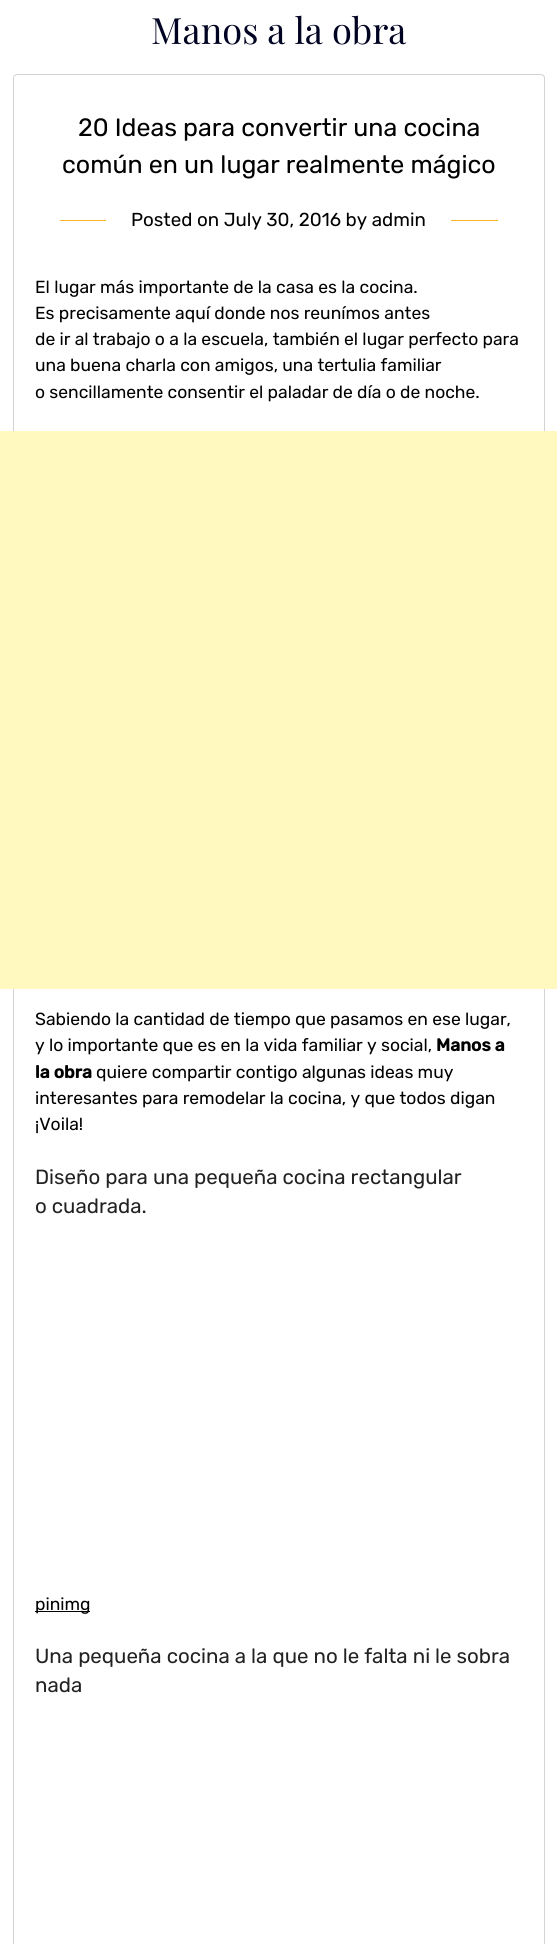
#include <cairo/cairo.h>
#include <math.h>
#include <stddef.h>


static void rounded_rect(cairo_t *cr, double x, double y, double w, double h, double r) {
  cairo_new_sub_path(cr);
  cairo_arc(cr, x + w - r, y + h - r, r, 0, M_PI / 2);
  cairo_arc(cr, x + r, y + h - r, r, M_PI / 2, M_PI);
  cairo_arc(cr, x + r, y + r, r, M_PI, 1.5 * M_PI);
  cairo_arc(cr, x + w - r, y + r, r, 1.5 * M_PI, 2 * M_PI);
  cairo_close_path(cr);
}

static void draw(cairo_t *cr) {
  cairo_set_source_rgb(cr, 1, 1, 1);
  cairo_paint(cr);
  rounded_rect(cr, 13.5, 74.5, 531, 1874, 3.5);
  cairo_set_source_rgb(cr, 211 / 255.0, 211 / 255.0, 211 / 255.0);
  cairo_set_line_width(cr, 1);
  cairo_stroke(cr);
  cairo_set_source_rgb(cr, 250 / 255.0, 181 / 255.0, 38 / 255.0);
  cairo_rectangle(cr, 60, 220, 438, 1);
  cairo_fill(cr);
  cairo_set_source_rgb(cr, 1, 1, 1);
  cairo_rectangle(cr, 106, 220, 345, 1);
  cairo_fill(cr);
  cairo_set_source_rgb(cr, 1, 249 / 255.0, 192 / 255.0);
  cairo_rectangle(cr, 0, 431, 557, 558);
  cairo_fill(cr);
  cairo_set_source_rgb(cr, 0, 0, 0);
  cairo_rectangle(cr, 35, 1611, 55, 1);
  cairo_fill(cr);
  cairo_select_font_face(cr, "Playfair Display", CAIRO_FONT_SLANT_NORMAL, CAIRO_FONT_WEIGHT_NORMAL);
  cairo_set_font_size(cr, 36.25);
  cairo_set_source_rgb(cr, 0, 2 / 255.0, 34 / 255.0);
  cairo_move_to(cr, 151, 44);
  cairo_show_text(cr, "Manos a la obra");
  cairo_select_font_face(cr, "Rubik", CAIRO_FONT_SLANT_NORMAL, CAIRO_FONT_WEIGHT_NORMAL);
  cairo_set_font_size(cr, 25);
  cairo_set_source_rgb(cr, 0, 0, 0);
  cairo_move_to(cr, 78, 136);
  cairo_show_text(cr, "20 Ideas para convertir una cocina");
  cairo_move_to(cr, 62, 173);
  cairo_show_text(cr, "común en un lugar realmente mágico");
  cairo_set_font_size(cr, 18.75);
  cairo_move_to(cr, 131, 226);
  cairo_show_text(cr, "Posted on July 30, 2016 by admin");
  cairo_set_font_size(cr, 17.5);
  cairo_move_to(cr, 35, 293);
  cairo_show_text(cr, "El lugar más importante de la casa es la cocina.");
  cairo_move_to(cr, 35, 319);
  cairo_show_text(cr, "Es precisamente aquí donde nos reunímos antes");
  cairo_move_to(cr, 35, 345);
  cairo_show_text(cr, "de ir al trabajo o a la escuela, también el lugar perfecto para");
  cairo_move_to(cr, 35, 371);
  cairo_show_text(cr, "una buena charla con amigos, una tertulia familiar");
  cairo_move_to(cr, 35, 398);
  cairo_show_text(cr, "o sencillamente consentir el paladar de día o de noche.");
  cairo_move_to(cr, 35, 1025);
  cairo_show_text(cr, "Sabiendo la cantidad de tiempo que pasamos en ese lugar,");
  cairo_move_to(cr, 35, 1051);
  cairo_show_text(cr, "y lo importante que es en la vida familiar y social,");
  cairo_select_font_face(cr, "Rubik", CAIRO_FONT_SLANT_NORMAL, CAIRO_FONT_WEIGHT_BOLD);
  cairo_move_to(cr, 436, 1051);
  cairo_show_text(cr, "Manos a");
  cairo_move_to(cr, 35, 1078);
  cairo_show_text(cr, "la obra");
  cairo_select_font_face(cr, "Rubik", CAIRO_FONT_SLANT_NORMAL, CAIRO_FONT_WEIGHT_NORMAL);
  cairo_move_to(cr, 96, 1078);
  cairo_show_text(cr, "quiere compartir contigo algunas ideas muy");
  cairo_move_to(cr, 35, 1104);
  cairo_show_text(cr, "interesantes para remodelar la cocina, y que todos digan");
  cairo_move_to(cr, 35, 1130);
  cairo_show_text(cr, "¡Voila!");
  cairo_set_font_size(cr, 20.5);
  cairo_set_source_rgb(cr, 34 / 255.0, 34 / 255.0, 34 / 255.0);
  cairo_move_to(cr, 35, 1184);
  cairo_show_text(cr, "Diseño para una pequeña cocina rectangular");
  cairo_move_to(cr, 35, 1213);
  cairo_show_text(cr, "o cuadrada.");
  cairo_set_font_size(cr, 17.5);
  cairo_set_source_rgb(cr, 0, 0, 0);
  cairo_move_to(cr, 35, 1610);
  cairo_show_text(cr, "pinimg");
  cairo_set_font_size(cr, 20.5);
  cairo_set_source_rgb(cr, 34 / 255.0, 34 / 255.0, 34 / 255.0);
  cairo_move_to(cr, 35, 1663);
  cairo_show_text(cr, "Una pequeña cocina a la que no le falta ni le sobra");
  cairo_move_to(cr, 35, 1692);
  cairo_show_text(cr, "nada");
}

int main(void) {
  cairo_surface_t *surface = cairo_image_surface_create(CAIRO_FORMAT_RGB24, 557, 1944);
  cairo_t *cr = cairo_create(surface);
  cairo_font_options_t *options = cairo_font_options_create();
  cairo_font_options_set_hint_metrics(options, CAIRO_HINT_METRICS_OFF);
  cairo_font_options_set_hint_style(options, CAIRO_HINT_STYLE_NONE);
  cairo_set_font_options(cr, options);
  cairo_set_miter_limit(cr, 4);
  draw(cr);
  cairo_surface_write_to_png(surface, "out.png");
  cairo_font_options_destroy(options);
  cairo_destroy(cr);
  cairo_surface_destroy(surface);
  return 0;
}
